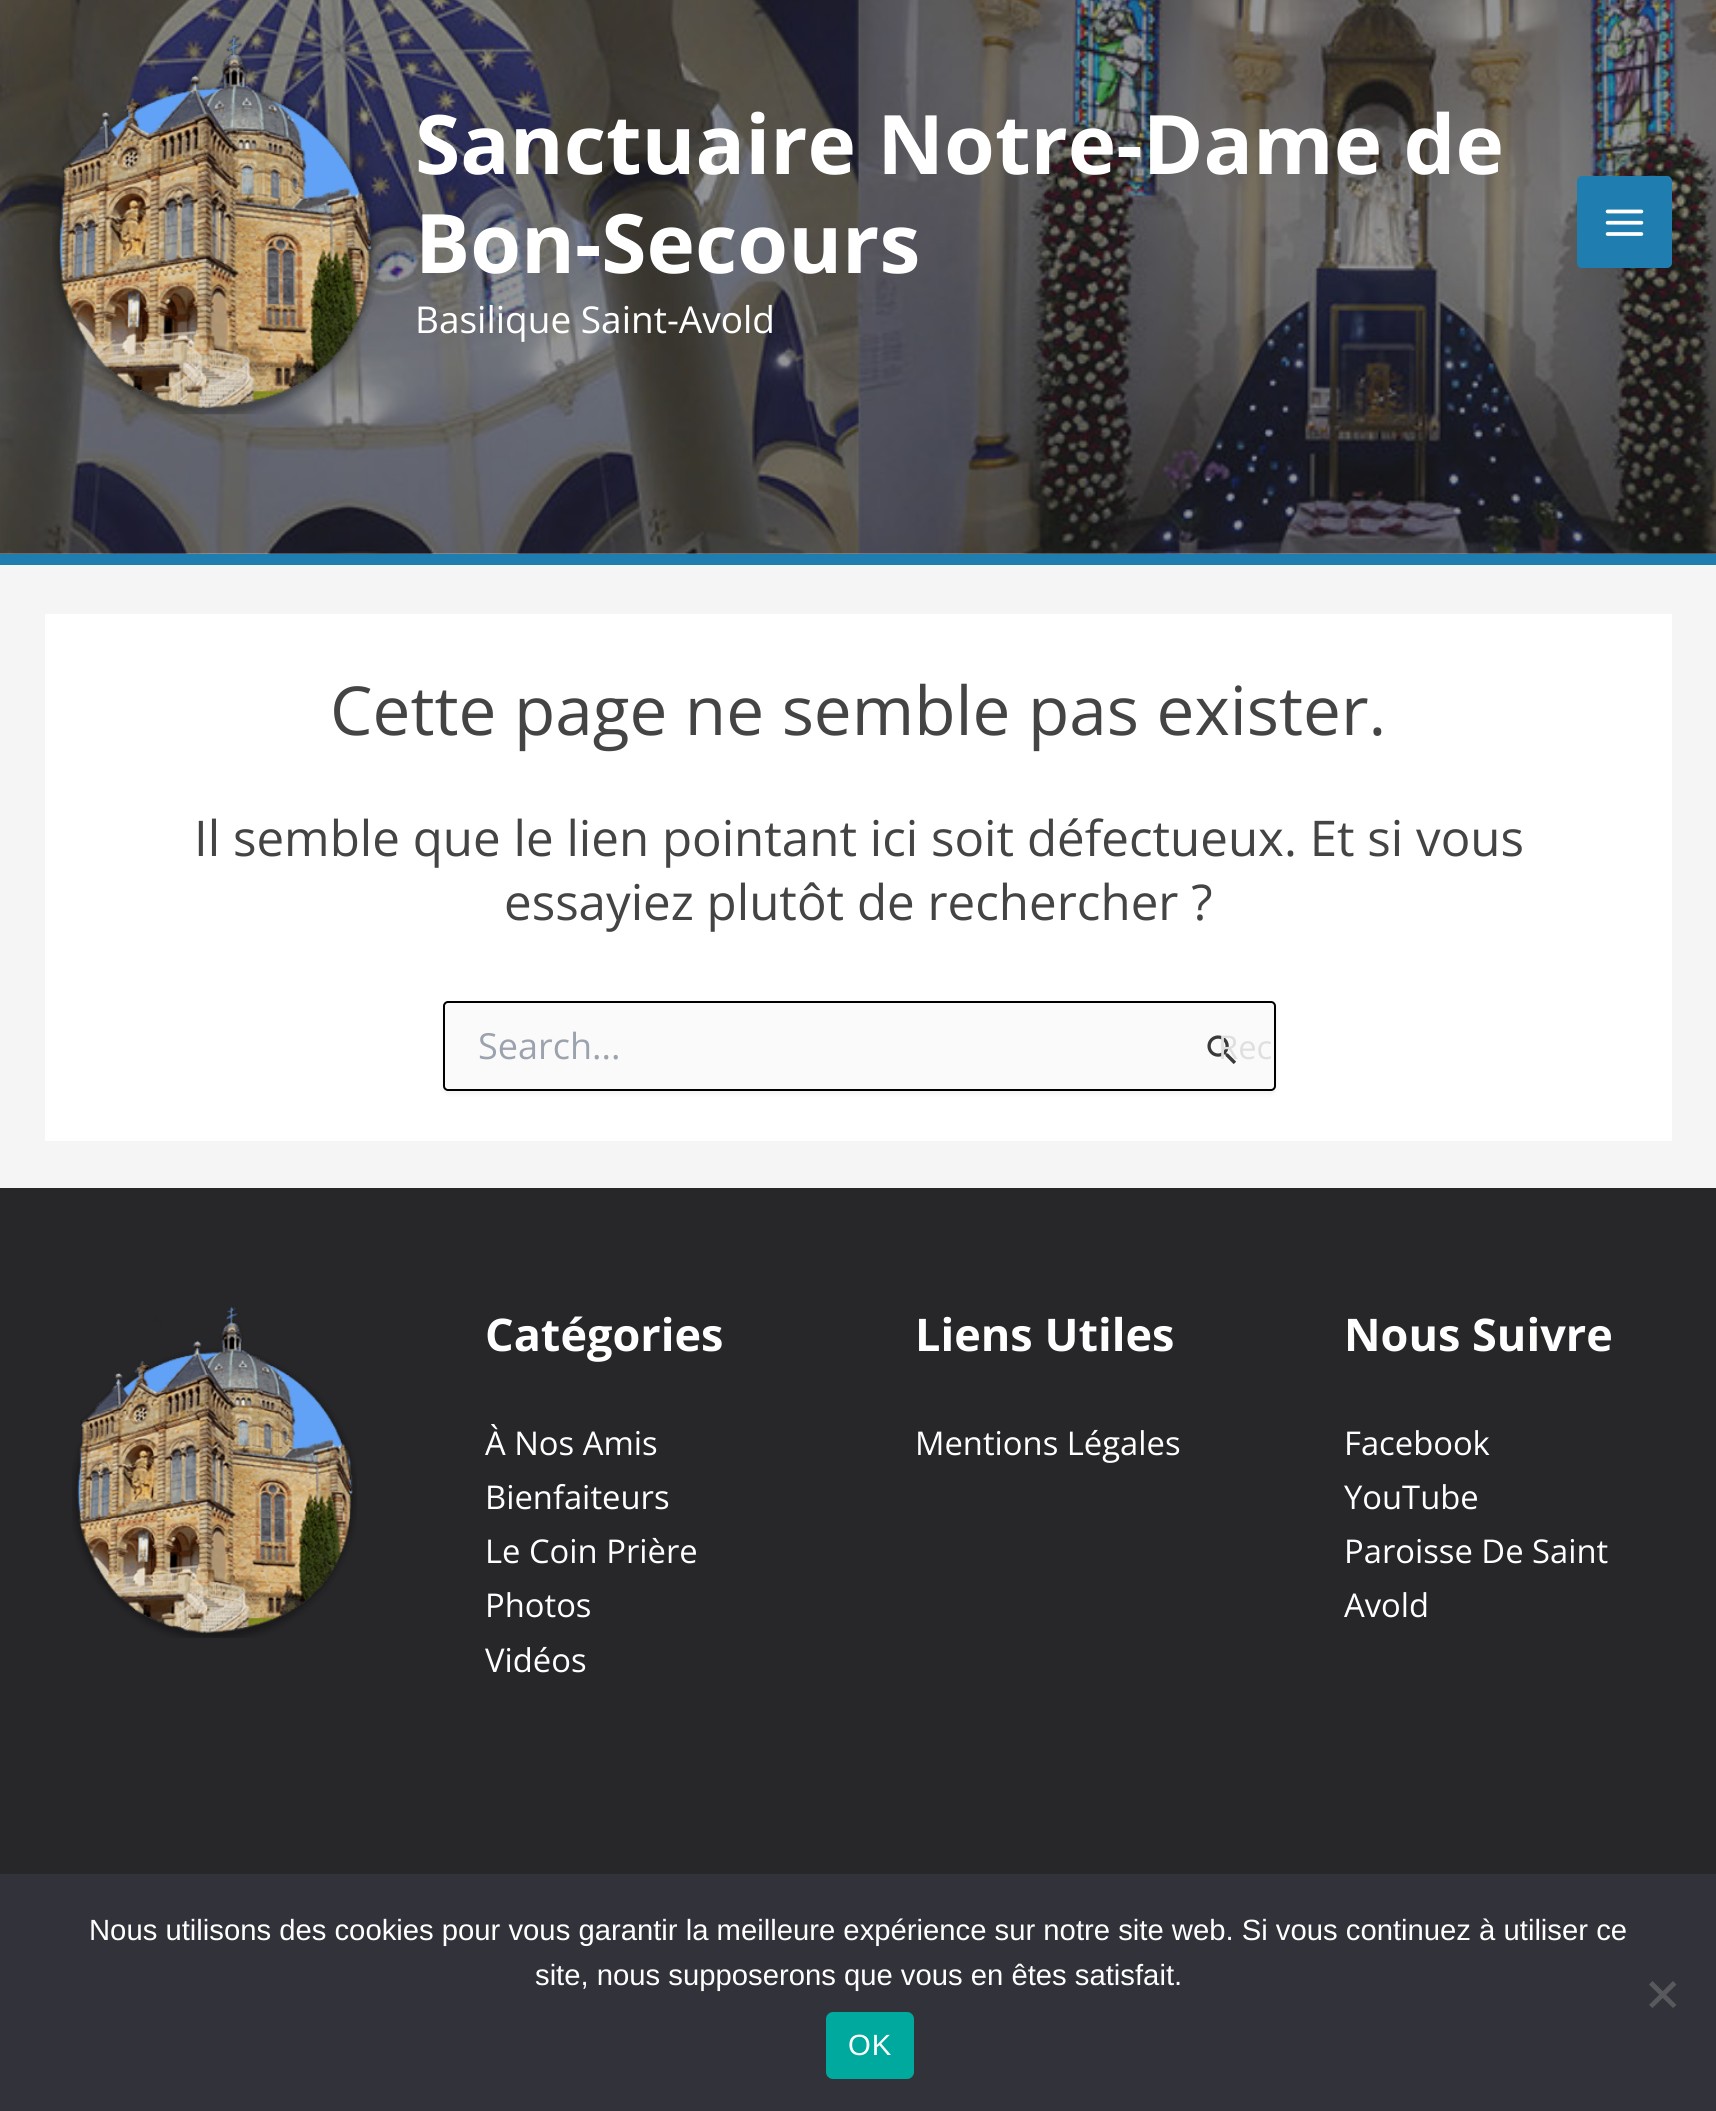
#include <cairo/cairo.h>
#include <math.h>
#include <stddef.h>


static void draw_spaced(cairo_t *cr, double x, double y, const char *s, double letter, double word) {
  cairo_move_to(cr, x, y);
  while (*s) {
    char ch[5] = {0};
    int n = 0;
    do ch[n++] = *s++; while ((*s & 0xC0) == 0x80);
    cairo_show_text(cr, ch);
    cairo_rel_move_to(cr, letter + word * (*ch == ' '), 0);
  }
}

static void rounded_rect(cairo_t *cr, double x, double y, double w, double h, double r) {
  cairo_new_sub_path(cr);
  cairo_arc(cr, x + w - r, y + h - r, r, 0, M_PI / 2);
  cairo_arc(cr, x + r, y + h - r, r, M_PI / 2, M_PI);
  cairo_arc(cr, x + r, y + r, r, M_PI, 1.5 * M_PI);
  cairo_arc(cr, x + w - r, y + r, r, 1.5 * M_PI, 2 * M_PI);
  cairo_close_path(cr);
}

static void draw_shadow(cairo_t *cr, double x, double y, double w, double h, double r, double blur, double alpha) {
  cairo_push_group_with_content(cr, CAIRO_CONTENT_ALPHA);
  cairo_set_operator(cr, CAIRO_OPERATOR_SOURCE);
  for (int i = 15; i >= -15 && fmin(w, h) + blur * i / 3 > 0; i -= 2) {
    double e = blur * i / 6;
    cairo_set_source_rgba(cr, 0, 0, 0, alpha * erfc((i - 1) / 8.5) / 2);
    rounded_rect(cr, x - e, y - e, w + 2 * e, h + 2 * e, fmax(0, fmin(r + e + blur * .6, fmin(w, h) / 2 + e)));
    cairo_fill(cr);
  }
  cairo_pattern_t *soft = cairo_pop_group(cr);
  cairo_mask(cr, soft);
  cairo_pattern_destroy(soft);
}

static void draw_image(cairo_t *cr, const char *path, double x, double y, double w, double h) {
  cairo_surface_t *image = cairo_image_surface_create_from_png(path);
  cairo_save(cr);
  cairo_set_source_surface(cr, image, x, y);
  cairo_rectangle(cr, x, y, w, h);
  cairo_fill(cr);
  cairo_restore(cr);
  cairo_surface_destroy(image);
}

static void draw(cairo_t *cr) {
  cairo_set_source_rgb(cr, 245 / 255.0, 245 / 255.0, 245 / 255.0);
  cairo_paint(cr);
  draw_image(cr, "images/1.png", 0, 0, 1716, 554);
  cairo_set_source_rgb(cr, 32 / 255.0, 125 / 255.0, 175 / 255.0);
  cairo_rectangle(cr, 0, 554, 1716, 11);
  cairo_fill(cr);
  draw_image(cr, "images/2.png", 52, 34, 328, 381);
  rounded_rect(cr, 1577, 176, 95, 92, 5);
  cairo_fill(cr);
  draw_image(cr, "images/3.png", 1605, 209, 39, 27);
  cairo_set_source_rgb(cr, 1, 1, 1);
  cairo_rectangle(cr, 45, 614, 1627, 527);
  cairo_fill(cr);
  cairo_set_source_rgb(cr, 0, 0, 0);
  draw_shadow(cr, 443, 1004, 833, 90, 5, 2, 0.05);
  cairo_set_source_rgb(cr, 250 / 255.0, 250 / 255.0, 250 / 255.0);
  rounded_rect(cr, 444, 1002, 831, 88, 4);
  cairo_fill_preserve(cr);
  cairo_set_source_rgb(cr, 0, 0, 0);
  cairo_stroke(cr);
  draw_image(cr, "images/4.png", 1207, 1035, 29, 29);
  cairo_set_source_rgb(cr, 39 / 255.0, 39 / 255.0, 42 / 255.0);
  cairo_rectangle(cr, 0, 1188, 1716, 686);
  cairo_fill(cr);
  draw_image(cr, "images/5.png", 72, 1306, 285, 332);
  cairo_set_source_rgb(cr, 50 / 255.0, 50 / 255.0, 58 / 255.0);
  cairo_rectangle(cr, 0, 1874, 1716, 237);
  cairo_fill(cr);
  cairo_set_source_rgb(cr, 89 / 255.0, 89 / 255.0, 93 / 255.0);
  cairo_new_path(cr);
  cairo_move_to(cr, 1673, 1981);
  cairo_line_to(cr, 1676.5, 1984.5);
  cairo_line_to(cr, 1652.5, 2008);
  cairo_line_to(cr, 1649, 2005);
  cairo_close_path(cr);
  cairo_fill(cr);
  cairo_new_path(cr);
  cairo_move_to(cr, 1649, 1984.5);
  cairo_line_to(cr, 1652.5, 1981);
  cairo_line_to(cr, 1676.5, 2005);
  cairo_line_to(cr, 1673, 2008);
  cairo_close_path(cr);
  cairo_fill(cr);
  cairo_set_source_rgb(cr, 0, 169 / 255.0, 157 / 255.0);
  rounded_rect(cr, 826, 2012, 88, 67, 7);
  cairo_fill(cr);
  cairo_select_font_face(cr, "Open Sans", CAIRO_FONT_SLANT_NORMAL, CAIRO_FONT_WEIGHT_BOLD);
  cairo_set_font_size(cr, 82.1);
  cairo_set_source_rgb(cr, 1, 1, 1);
  cairo_move_to(cr, 415, 174);
  cairo_show_text(cr, "Sanctuaire Notre-Dame de");
  cairo_move_to(cr, 415, 273);
  cairo_show_text(cr, "Bon-Secours");
  cairo_select_font_face(cr, "Open Sans", CAIRO_FONT_SLANT_NORMAL, CAIRO_FONT_WEIGHT_NORMAL);
  cairo_set_font_size(cr, 37);
  cairo_move_to(cr, 415, 333);
  cairo_show_text(cr, "Basilique Saint-Avold");
  cairo_set_font_size(cr, 67.5);
  cairo_set_source_rgb(cr, 68 / 255.0, 68 / 255.0, 68 / 255.0);
  cairo_move_to(cr, 330, 735);
  cairo_show_text(cr, "Cette page ne semble pas exister.");
  cairo_set_font_size(cr, 49.25);
  cairo_move_to(cr, 194, 856);
  cairo_show_text(cr, "Il semble que le lien pointant ici soit défectueux. Et si vous");
  cairo_move_to(cr, 504, 920);
  cairo_show_text(cr, "essayiez plutôt de rechercher ?");
  cairo_set_font_size(cr, 36);
  cairo_set_source_rgb(cr, 156 / 255.0, 163 / 255.0, 175 / 255.0);
  cairo_move_to(cr, 478, 1059);
  cairo_show_text(cr, "Search...");
  cairo_set_font_size(cr, 32.75);
  cairo_set_source_rgb(cr, 223 / 255.0, 223 / 255.0, 223 / 255.0);
  cairo_move_to(cr, 1218, 1059);
  cairo_show_text(cr, "Rec");
  cairo_select_font_face(cr, "Open Sans", CAIRO_FONT_SLANT_NORMAL, CAIRO_FONT_WEIGHT_BOLD);
  cairo_set_font_size(cr, 45);
  cairo_set_source_rgb(cr, 1, 1, 1);
  cairo_move_to(cr, 485, 1351);
  cairo_show_text(cr, "Catégories");
  cairo_select_font_face(cr, "Open Sans", CAIRO_FONT_SLANT_NORMAL, CAIRO_FONT_WEIGHT_NORMAL);
  cairo_set_font_size(cr, 32.75);
  cairo_move_to(cr, 485, 1455);
  cairo_show_text(cr, "À Nos Amis");
  cairo_move_to(cr, 485, 1509);
  cairo_show_text(cr, "Bienfaiteurs");
  cairo_move_to(cr, 485, 1563);
  cairo_show_text(cr, "Le Coin Prière");
  cairo_move_to(cr, 485, 1617);
  cairo_show_text(cr, "Photos");
  cairo_move_to(cr, 485, 1672);
  cairo_show_text(cr, "Vidéos");
  cairo_select_font_face(cr, "Open Sans", CAIRO_FONT_SLANT_NORMAL, CAIRO_FONT_WEIGHT_BOLD);
  cairo_set_font_size(cr, 45);
  cairo_move_to(cr, 915, 1351);
  cairo_show_text(cr, "Liens Utiles");
  cairo_select_font_face(cr, "Open Sans", CAIRO_FONT_SLANT_NORMAL, CAIRO_FONT_WEIGHT_NORMAL);
  cairo_set_font_size(cr, 32.75);
  cairo_move_to(cr, 915, 1455);
  cairo_show_text(cr, "Mentions Légales");
  cairo_select_font_face(cr, "Open Sans", CAIRO_FONT_SLANT_NORMAL, CAIRO_FONT_WEIGHT_BOLD);
  cairo_set_font_size(cr, 45);
  cairo_move_to(cr, 1344, 1351);
  cairo_show_text(cr, "Nous Suivre");
  cairo_select_font_face(cr, "Open Sans", CAIRO_FONT_SLANT_NORMAL, CAIRO_FONT_WEIGHT_NORMAL);
  cairo_set_font_size(cr, 32.75);
  cairo_move_to(cr, 1344, 1455);
  cairo_show_text(cr, "Facebook");
  cairo_move_to(cr, 1344, 1509);
  cairo_show_text(cr, "YouTube");
  cairo_move_to(cr, 1344, 1563);
  cairo_show_text(cr, "Paroisse De Saint");
  cairo_move_to(cr, 1344, 1617);
  cairo_show_text(cr, "Avold");
  cairo_select_font_face(cr, "Liberation Sans", CAIRO_FONT_SLANT_NORMAL, CAIRO_FONT_WEIGHT_NORMAL);
  cairo_set_font_size(cr, 29.25);
  cairo_move_to(cr, 89, 1940);
  cairo_show_text(cr, "Nous utilisons des cookies pour vous garantir la meilleure expérience sur notre site web. Si vous continuez à utiliser ce");
  cairo_move_to(cr, 535, 1985);
  cairo_show_text(cr, "site, nous supposerons que vous en êtes satisfait.");
  draw_spaced(cr, 848, 2055, "OK", 1, 0);
}

int main(void) {
  cairo_surface_t *surface = cairo_image_surface_create(CAIRO_FORMAT_RGB24, 1716, 2111);
  cairo_t *cr = cairo_create(surface);
  cairo_font_options_t *options = cairo_font_options_create();
  cairo_font_options_set_hint_metrics(options, CAIRO_HINT_METRICS_OFF);
  cairo_font_options_set_hint_style(options, CAIRO_HINT_STYLE_NONE);
  cairo_set_font_options(cr, options);
  cairo_set_miter_limit(cr, 4);
  draw(cr);
  cairo_surface_write_to_png(surface, "out.png");
  cairo_font_options_destroy(options);
  cairo_destroy(cr);
  cairo_surface_destroy(surface);
  return 0;
}
